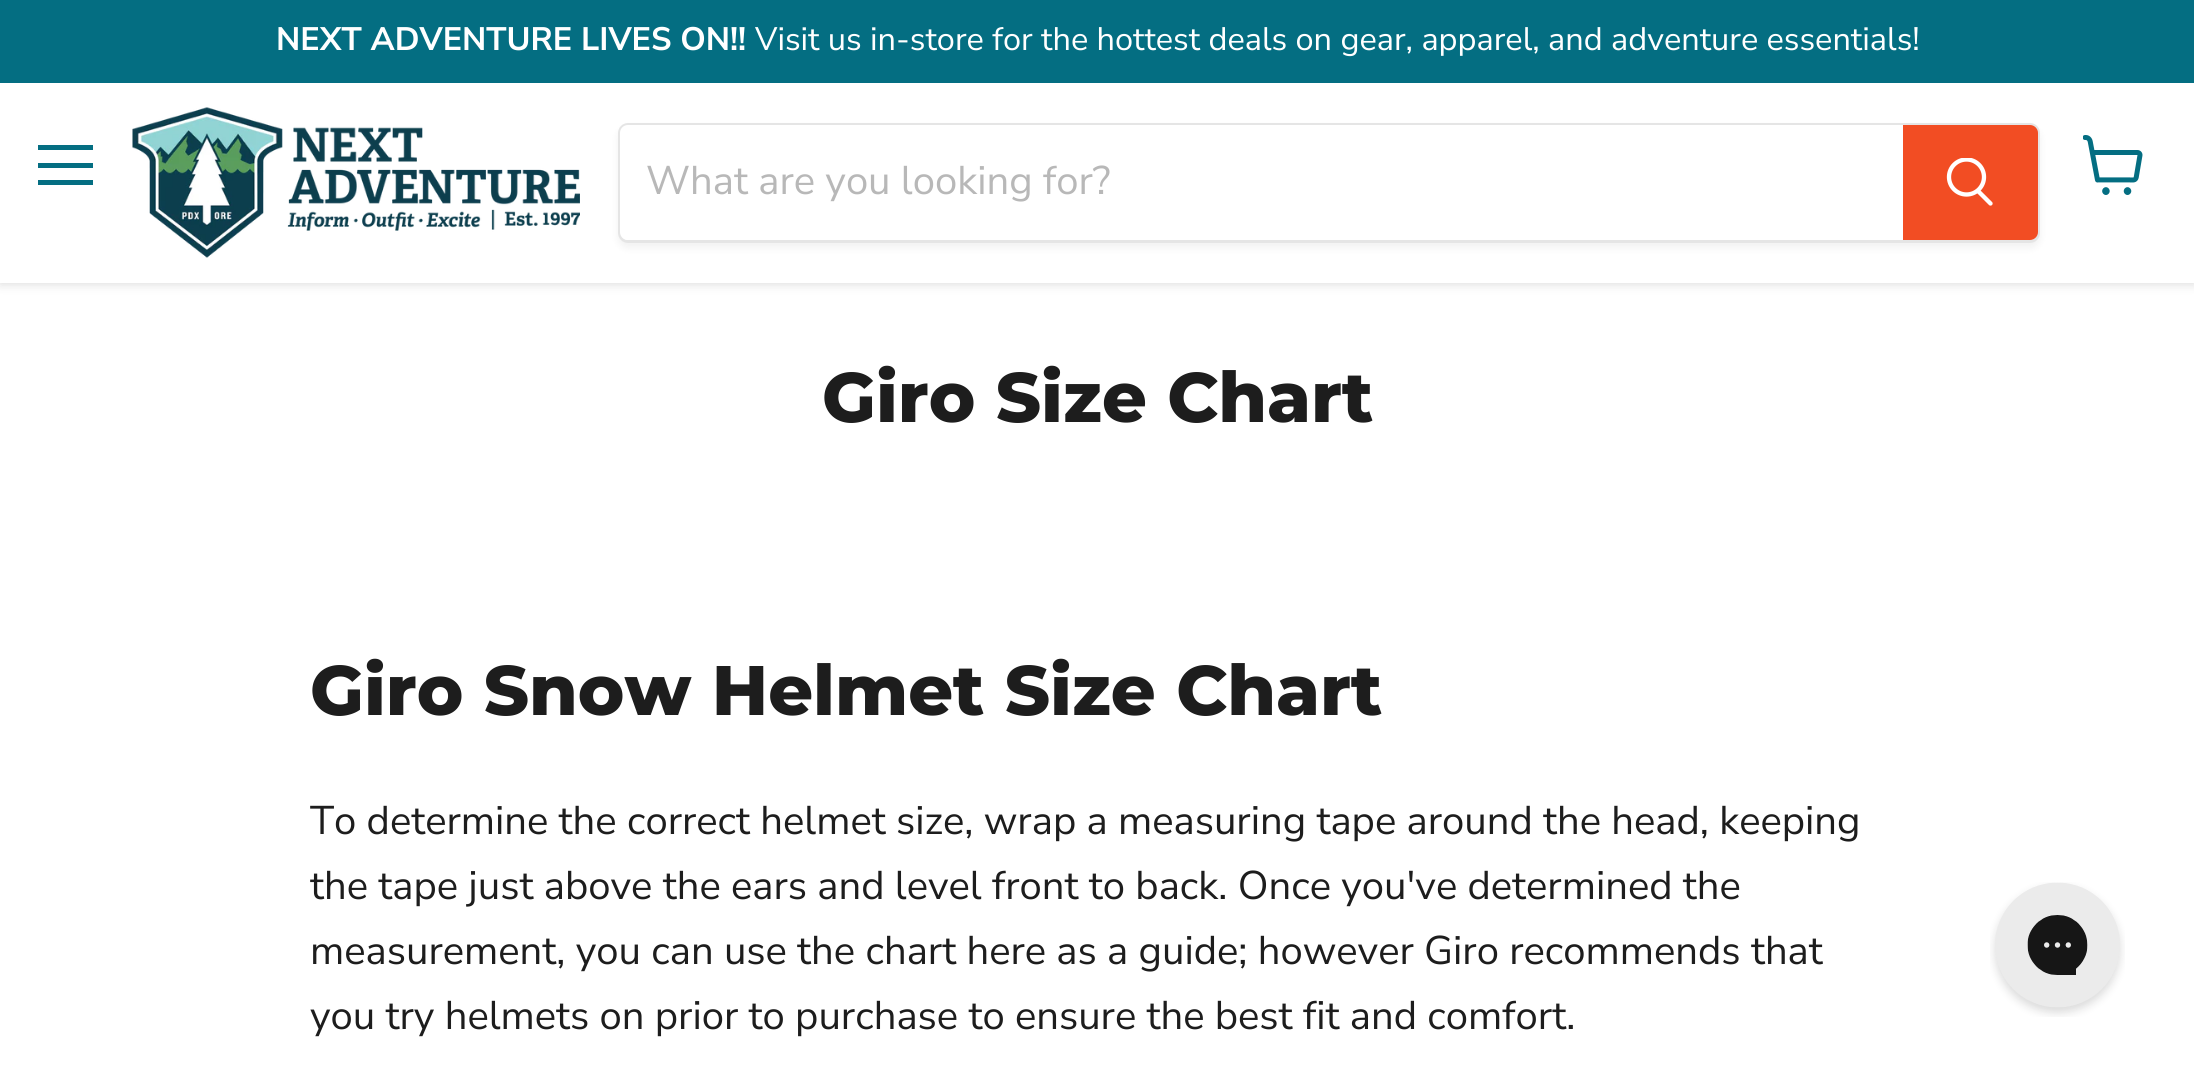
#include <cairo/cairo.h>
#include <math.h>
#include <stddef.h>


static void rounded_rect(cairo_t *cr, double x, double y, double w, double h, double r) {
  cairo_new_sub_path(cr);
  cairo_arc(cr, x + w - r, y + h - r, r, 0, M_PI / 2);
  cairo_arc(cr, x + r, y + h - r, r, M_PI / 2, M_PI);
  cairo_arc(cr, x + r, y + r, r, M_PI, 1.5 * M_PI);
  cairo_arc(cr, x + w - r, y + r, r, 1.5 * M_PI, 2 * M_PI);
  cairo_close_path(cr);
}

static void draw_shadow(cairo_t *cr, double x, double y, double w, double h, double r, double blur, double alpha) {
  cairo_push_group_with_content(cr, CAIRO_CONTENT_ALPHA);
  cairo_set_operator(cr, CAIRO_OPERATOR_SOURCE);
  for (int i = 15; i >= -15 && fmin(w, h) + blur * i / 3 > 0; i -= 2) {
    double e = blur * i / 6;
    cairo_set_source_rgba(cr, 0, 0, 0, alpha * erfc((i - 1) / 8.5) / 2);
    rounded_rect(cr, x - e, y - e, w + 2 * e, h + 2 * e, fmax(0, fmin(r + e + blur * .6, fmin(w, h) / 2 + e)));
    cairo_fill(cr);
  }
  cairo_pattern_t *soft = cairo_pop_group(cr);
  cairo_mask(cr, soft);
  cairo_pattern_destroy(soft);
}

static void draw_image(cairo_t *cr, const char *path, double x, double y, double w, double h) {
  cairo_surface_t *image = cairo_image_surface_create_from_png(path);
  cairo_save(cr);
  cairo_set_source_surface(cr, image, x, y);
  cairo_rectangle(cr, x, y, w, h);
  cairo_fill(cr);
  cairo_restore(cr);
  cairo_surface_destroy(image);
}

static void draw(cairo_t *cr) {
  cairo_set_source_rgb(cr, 1, 1, 1);
  cairo_paint(cr);
  cairo_set_source_rgb(cr, 128 / 255.0, 128 / 255.0, 128 / 255.0);
  draw_shadow(cr, 0, 85, 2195, 200, 0, 5, 0.25);
  cairo_set_source_rgb(cr, 4 / 255.0, 110 / 255.0, 130 / 255.0);
  cairo_rectangle(cr, 0, 0, 2194, 83);
  cairo_fill(cr);
  cairo_set_source_rgb(cr, 1, 1, 1);
  cairo_rectangle(cr, 0, 83, 2194, 200);
  cairo_fill(cr);
  cairo_set_source_rgb(cr, 4 / 255.0, 110 / 255.0, 130 / 255.0);
  cairo_rectangle(cr, 38, 145, 55, 5);
  cairo_fill(cr);
  cairo_rectangle(cr, 38, 163, 55, 5);
  cairo_fill(cr);
  cairo_rectangle(cr, 38, 180, 55, 5);
  cairo_fill(cr);
  draw_image(cr, "images/1.png", 132, 107, 448, 151);
  cairo_save(cr);
  cairo_set_fill_rule(cr, CAIRO_FILL_RULE_EVEN_ODD);
  cairo_new_path(cr);
  cairo_move_to(cr, 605, 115);
  cairo_line_to(cr, 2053, 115);
  cairo_line_to(cr, 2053, 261);
  cairo_line_to(cr, 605, 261);
  cairo_close_path(cr);
  cairo_move_to(cr, 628, 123);
  cairo_line_to(cr, 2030, 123);
  cairo_curve_to(cr, 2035.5, 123, 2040, 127.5, 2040, 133);
  cairo_line_to(cr, 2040, 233);
  cairo_curve_to(cr, 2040, 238.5, 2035.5, 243, 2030, 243);
  cairo_line_to(cr, 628, 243);
  cairo_curve_to(cr, 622.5, 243, 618, 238.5, 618, 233);
  cairo_line_to(cr, 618, 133);
  cairo_curve_to(cr, 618, 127.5, 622.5, 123, 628, 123);
  cairo_close_path(cr);
  cairo_clip(cr);
  cairo_set_source_rgb(cr, 128 / 255.0, 128 / 255.0, 128 / 255.0);
  draw_shadow(cr, 618, 128, 1422, 120, 10, 4, 0.11);
  cairo_restore(cr);
  rounded_rect(cr, 619.5, 124.5, 1419, 117, 8.5);
  cairo_set_source_rgba(cr, 128 / 255.0, 128 / 255.0, 128 / 255.0, 0.2);
  cairo_set_line_width(cr, 3);
  cairo_stroke(cr);
  cairo_set_source_rgb(cr, 1, 1, 1);
  cairo_new_path(cr);
  cairo_move_to(cr, 628, 125);
  cairo_line_to(cr, 1903, 125);
  cairo_line_to(cr, 1903, 240);
  cairo_line_to(cr, 628, 240);
  cairo_curve_to(cr, 623.5, 240, 620, 236.5, 620, 232);
  cairo_line_to(cr, 620, 133);
  cairo_curve_to(cr, 620, 128.5, 623.5, 125, 628, 125);
  cairo_close_path(cr);
  cairo_fill(cr);
  cairo_set_source_rgb(cr, 242 / 255.0, 77 / 255.0, 35 / 255.0);
  cairo_new_path(cr);
  cairo_move_to(cr, 1904.5, 126.5);
  cairo_line_to(cr, 2030, 126.5);
  cairo_curve_to(cr, 2033.5, 126.5, 2036.5, 129.5, 2036.5, 133);
  cairo_line_to(cr, 2036.5, 232);
  cairo_curve_to(cr, 2036.5, 235.5, 2033.5, 238.5, 2030, 238.5);
  cairo_line_to(cr, 1904.5, 238.5);
  cairo_close_path(cr);
  cairo_fill_preserve(cr);
  cairo_stroke(cr);
  cairo_new_path(cr);
  cairo_move_to(cr, 1990.5, 203.5);
  cairo_line_to(cr, 1978.5, 191.5);
  cairo_set_source_rgb(cr, 1, 1, 1);
  cairo_set_line_width(cr, 4.3);
  cairo_set_line_cap(cr, CAIRO_LINE_CAP_ROUND);
  cairo_stroke(cr);
  cairo_save(cr);
  cairo_rectangle(cr, 1945, 158, 50, 52);
  cairo_clip(cr);
  cairo_arc(cr, 1966.5, 177, 17.5, 0, 2 * M_PI);
  cairo_set_line_cap(cr, CAIRO_LINE_CAP_BUTT);
  cairo_stroke(cr);
  cairo_restore(cr);
  draw_image(cr, "images/2.png", 2083, 135, 60, 60);
  draw_image(cr, "images/3.png", 1990, 882, 135, 135);
  cairo_select_font_face(cr, "Nunito Sans", CAIRO_FONT_SLANT_NORMAL, CAIRO_FONT_WEIGHT_BOLD);
  cairo_set_font_size(cr, 32.5);
  cairo_move_to(cr, 276, 50);
  cairo_show_text(cr, "NEXT ADVENTURE LIVES ON!!");
  cairo_select_font_face(cr, "Nunito Sans", CAIRO_FONT_SLANT_NORMAL, CAIRO_FONT_WEIGHT_NORMAL);
  cairo_move_to(cr, 755, 50);
  cairo_show_text(cr, "Visit us in-store for the hottest deals on gear, apparel, and adventure essentials!");
  cairo_set_font_size(cr, 40);
  cairo_set_source_rgb(cr, 184 / 255.0, 184 / 255.0, 184 / 255.0);
  cairo_move_to(cr, 646, 194);
  cairo_show_text(cr, "What are you looking for?");
  cairo_select_font_face(cr, "Montserrat ExtraBold", CAIRO_FONT_SLANT_NORMAL, CAIRO_FONT_WEIGHT_NORMAL);
  cairo_set_font_size(cr, 70);
  cairo_set_source_rgb(cr, 29 / 255.0, 29 / 255.0, 29 / 255.0);
  cairo_move_to(cr, 822, 422);
  cairo_show_text(cr, "Giro Size Chart");
  cairo_move_to(cr, 310, 715);
  cairo_show_text(cr, "Giro Snow Helmet Size Chart");
  cairo_select_font_face(cr, "Nunito Sans", CAIRO_FONT_SLANT_NORMAL, CAIRO_FONT_WEIGHT_NORMAL);
  cairo_set_font_size(cr, 40);
  cairo_move_to(cr, 310, 834);
  cairo_show_text(cr, "To determine the correct helmet size, wrap a measuring tape around the head, keeping");
  cairo_move_to(cr, 310, 899);
  cairo_show_text(cr, "the tape just above the ears and level front to back. Once you've determined the");
  cairo_move_to(cr, 310, 964);
  cairo_show_text(cr, "measurement, you can use the chart here as a guide; however Giro recommends that");
  cairo_move_to(cr, 310, 1029);
  cairo_show_text(cr, "you try helmets on prior to purchase to ensure the best fit and comfort.");
}

int main(void) {
  cairo_surface_t *surface = cairo_image_surface_create(CAIRO_FORMAT_RGB24, 2194, 1075);
  cairo_t *cr = cairo_create(surface);
  cairo_font_options_t *options = cairo_font_options_create();
  cairo_font_options_set_hint_metrics(options, CAIRO_HINT_METRICS_OFF);
  cairo_font_options_set_hint_style(options, CAIRO_HINT_STYLE_NONE);
  cairo_set_font_options(cr, options);
  cairo_set_miter_limit(cr, 4);
  draw(cr);
  cairo_surface_write_to_png(surface, "out.png");
  cairo_font_options_destroy(options);
  cairo_destroy(cr);
  cairo_surface_destroy(surface);
  return 0;
}
